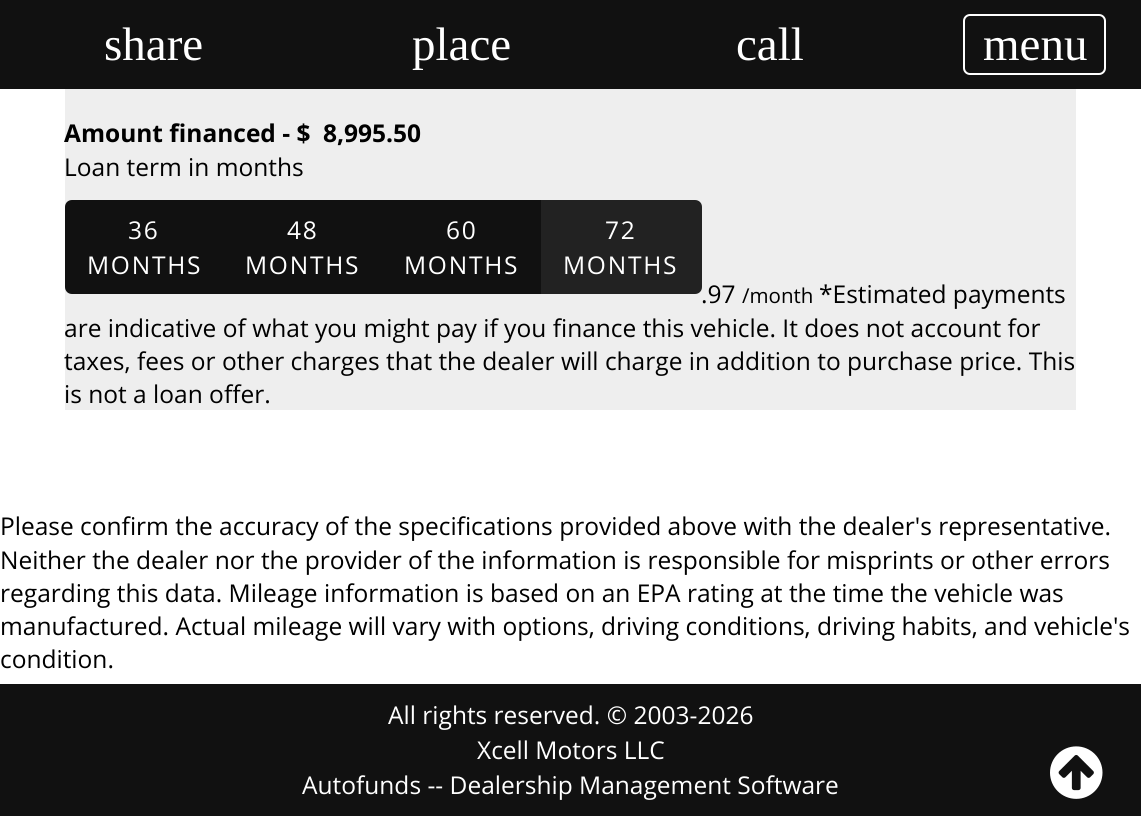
#include <cairo/cairo.h>
#include <math.h>
#include <stddef.h>


static void draw_spaced(cairo_t *cr, double x, double y, const char *s, double letter, double word) {
  cairo_move_to(cr, x, y);
  while (*s) {
    char ch[5] = {0};
    int n = 0;
    do ch[n++] = *s++; while ((*s & 0xC0) == 0x80);
    cairo_show_text(cr, ch);
    cairo_rel_move_to(cr, letter + word * (*ch == ' '), 0);
  }
}

static void rounded_rect(cairo_t *cr, double x, double y, double w, double h, double r) {
  cairo_new_sub_path(cr);
  cairo_arc(cr, x + w - r, y + h - r, r, 0, M_PI / 2);
  cairo_arc(cr, x + r, y + h - r, r, M_PI / 2, M_PI);
  cairo_arc(cr, x + r, y + r, r, M_PI, 1.5 * M_PI);
  cairo_arc(cr, x + w - r, y + r, r, 1.5 * M_PI, 2 * M_PI);
  cairo_close_path(cr);
}

static void draw_image(cairo_t *cr, const char *path, double x, double y, double w, double h) {
  cairo_surface_t *image = cairo_image_surface_create_from_png(path);
  cairo_save(cr);
  cairo_set_source_surface(cr, image, x, y);
  cairo_rectangle(cr, x, y, w, h);
  cairo_fill(cr);
  cairo_restore(cr);
  cairo_surface_destroy(image);
}

static void draw(cairo_t *cr) {
  cairo_set_source_rgb(cr, 1, 1, 1);
  cairo_paint(cr);
  cairo_set_source_rgb(cr, 17 / 255.0, 17 / 255.0, 17 / 255.0);
  cairo_rectangle(cr, 0, 0, 1141, 89);
  cairo_fill(cr);
  rounded_rect(cr, 964, 15, 141, 59, 6);
  cairo_set_source_rgb(cr, 1, 1, 1);
  cairo_stroke(cr);
  cairo_set_source_rgb(cr, 238 / 255.0, 238 / 255.0, 238 / 255.0);
  cairo_rectangle(cr, 65, 89, 1011, 321);
  cairo_fill(cr);
  cairo_set_source_rgb(cr, 17 / 255.0, 17 / 255.0, 17 / 255.0);
  cairo_new_path(cr);
  cairo_move_to(cr, 72, 200);
  cairo_line_to(cr, 224, 200);
  cairo_line_to(cr, 224, 294);
  cairo_line_to(cr, 72, 294);
  cairo_curve_to(cr, 68, 294, 65, 291, 65, 287);
  cairo_line_to(cr, 65, 207);
  cairo_curve_to(cr, 65, 203, 68, 200, 72, 200);
  cairo_close_path(cr);
  cairo_fill(cr);
  cairo_rectangle(cr, 224, 200, 317, 94);
  cairo_fill(cr);
  cairo_set_source_rgb(cr, 34 / 255.0, 34 / 255.0, 34 / 255.0);
  cairo_new_path(cr);
  cairo_move_to(cr, 541, 200);
  cairo_line_to(cr, 695, 200);
  cairo_curve_to(cr, 699, 200, 702, 203, 702, 207);
  cairo_line_to(cr, 702, 287);
  cairo_curve_to(cr, 702, 291, 699, 294, 695, 294);
  cairo_line_to(cr, 541, 294);
  cairo_close_path(cr);
  cairo_fill(cr);
  cairo_set_source_rgb(cr, 17 / 255.0, 17 / 255.0, 17 / 255.0);
  cairo_rectangle(cr, 0, 684, 1141, 132);
  cairo_fill(cr);
  draw_image(cr, "images/1.png", 1050, 746, 53, 53);
  cairo_select_font_face(cr, "Liberation Serif", CAIRO_FONT_SLANT_NORMAL, CAIRO_FONT_WEIGHT_NORMAL);
  cairo_set_font_size(cr, 47);
  cairo_set_source_rgb(cr, 1, 1, 1);
  cairo_move_to(cr, 104, 60);
  cairo_show_text(cr, "share");
  cairo_move_to(cr, 412, 60);
  cairo_show_text(cr, "place");
  cairo_move_to(cr, 736, 60);
  cairo_show_text(cr, "call");
  cairo_move_to(cr, 983, 60);
  cairo_show_text(cr, "menu");
  cairo_select_font_face(cr, "Open Sans", CAIRO_FONT_SLANT_NORMAL, CAIRO_FONT_WEIGHT_BOLD);
  cairo_set_font_size(cr, 24.5);
  cairo_set_source_rgb(cr, 0, 0, 0);
  cairo_move_to(cr, 64, 142);
  cairo_show_text(cr, "Amount financed - $");
  cairo_move_to(cr, 323, 142);
  cairo_show_text(cr, "8,995.50");
  cairo_select_font_face(cr, "Open Sans", CAIRO_FONT_SLANT_NORMAL, CAIRO_FONT_WEIGHT_NORMAL);
  cairo_move_to(cr, 64, 176);
  cairo_show_text(cr, "Loan term in months");
  cairo_set_source_rgb(cr, 1, 1, 1);
  draw_spaced(cr, 128, 239, "36", 1.75, 0);
  draw_spaced(cr, 87, 274, "MONTHS", 1.75, 0);
  draw_spaced(cr, 287, 239, "48", 1.75, 0);
  draw_spaced(cr, 245, 274, "MONTHS", 1.75, 0);
  draw_spaced(cr, 446, 239, "60", 1.75, 0);
  draw_spaced(cr, 404, 274, "MONTHS", 1.75, 0);
  draw_spaced(cr, 605, 239, "72", 1.75, 0);
  draw_spaced(cr, 563, 274, "MONTHS", 1.75, 0);
  cairo_set_source_rgb(cr, 0, 0, 0);
  cairo_move_to(cr, 701, 303);
  cairo_show_text(cr, ".97");
  cairo_set_font_size(cr, 20.5);
  cairo_move_to(cr, 742, 303);
  cairo_show_text(cr, "/month");
  cairo_set_font_size(cr, 24.5);
  cairo_move_to(cr, 819, 303);
  cairo_show_text(cr, "*Estimated payments");
  cairo_move_to(cr, 64, 337);
  cairo_show_text(cr, "are indicative of what you might pay if you finance this vehicle. It does not account for");
  cairo_move_to(cr, 64, 370);
  cairo_show_text(cr, "taxes, fees or other charges that the dealer will charge in addition to purchase price. This");
  cairo_move_to(cr, 64, 403);
  cairo_show_text(cr, "is not a loan offer.");
  cairo_move_to(cr, 0, 535);
  cairo_show_text(cr, "Please confirm the accuracy of the specifications provided above with the dealer's representative.");
  cairo_move_to(cr, 0, 569);
  cairo_show_text(cr, "Neither the dealer nor the provider of the information is responsible for misprints or other errors");
  cairo_move_to(cr, 0, 602);
  cairo_show_text(cr, "regarding this data. Mileage information is based on an EPA rating at the time the vehicle was");
  cairo_move_to(cr, 0, 635);
  cairo_show_text(cr, "manufactured. Actual mileage will vary with options, driving conditions, driving habits, and vehicle's");
  cairo_move_to(cr, 0, 668);
  cairo_show_text(cr, "condition.");
  cairo_set_source_rgb(cr, 1, 1, 1);
  cairo_move_to(cr, 388, 724);
  cairo_show_text(cr, "All rights reserved. © 2003-2026");
  cairo_move_to(cr, 477, 759);
  cairo_show_text(cr, "Xcell Motors LLC");
  cairo_move_to(cr, 302, 794);
  cairo_show_text(cr, "Autofunds -- Dealership Management Software");
}

int main(void) {
  cairo_surface_t *surface = cairo_image_surface_create(CAIRO_FORMAT_RGB24, 1141, 816);
  cairo_t *cr = cairo_create(surface);
  cairo_font_options_t *options = cairo_font_options_create();
  cairo_font_options_set_hint_metrics(options, CAIRO_HINT_METRICS_OFF);
  cairo_font_options_set_hint_style(options, CAIRO_HINT_STYLE_NONE);
  cairo_set_font_options(cr, options);
  cairo_set_miter_limit(cr, 4);
  draw(cr);
  cairo_surface_write_to_png(surface, "out.png");
  cairo_font_options_destroy(options);
  cairo_destroy(cr);
  cairo_surface_destroy(surface);
  return 0;
}
